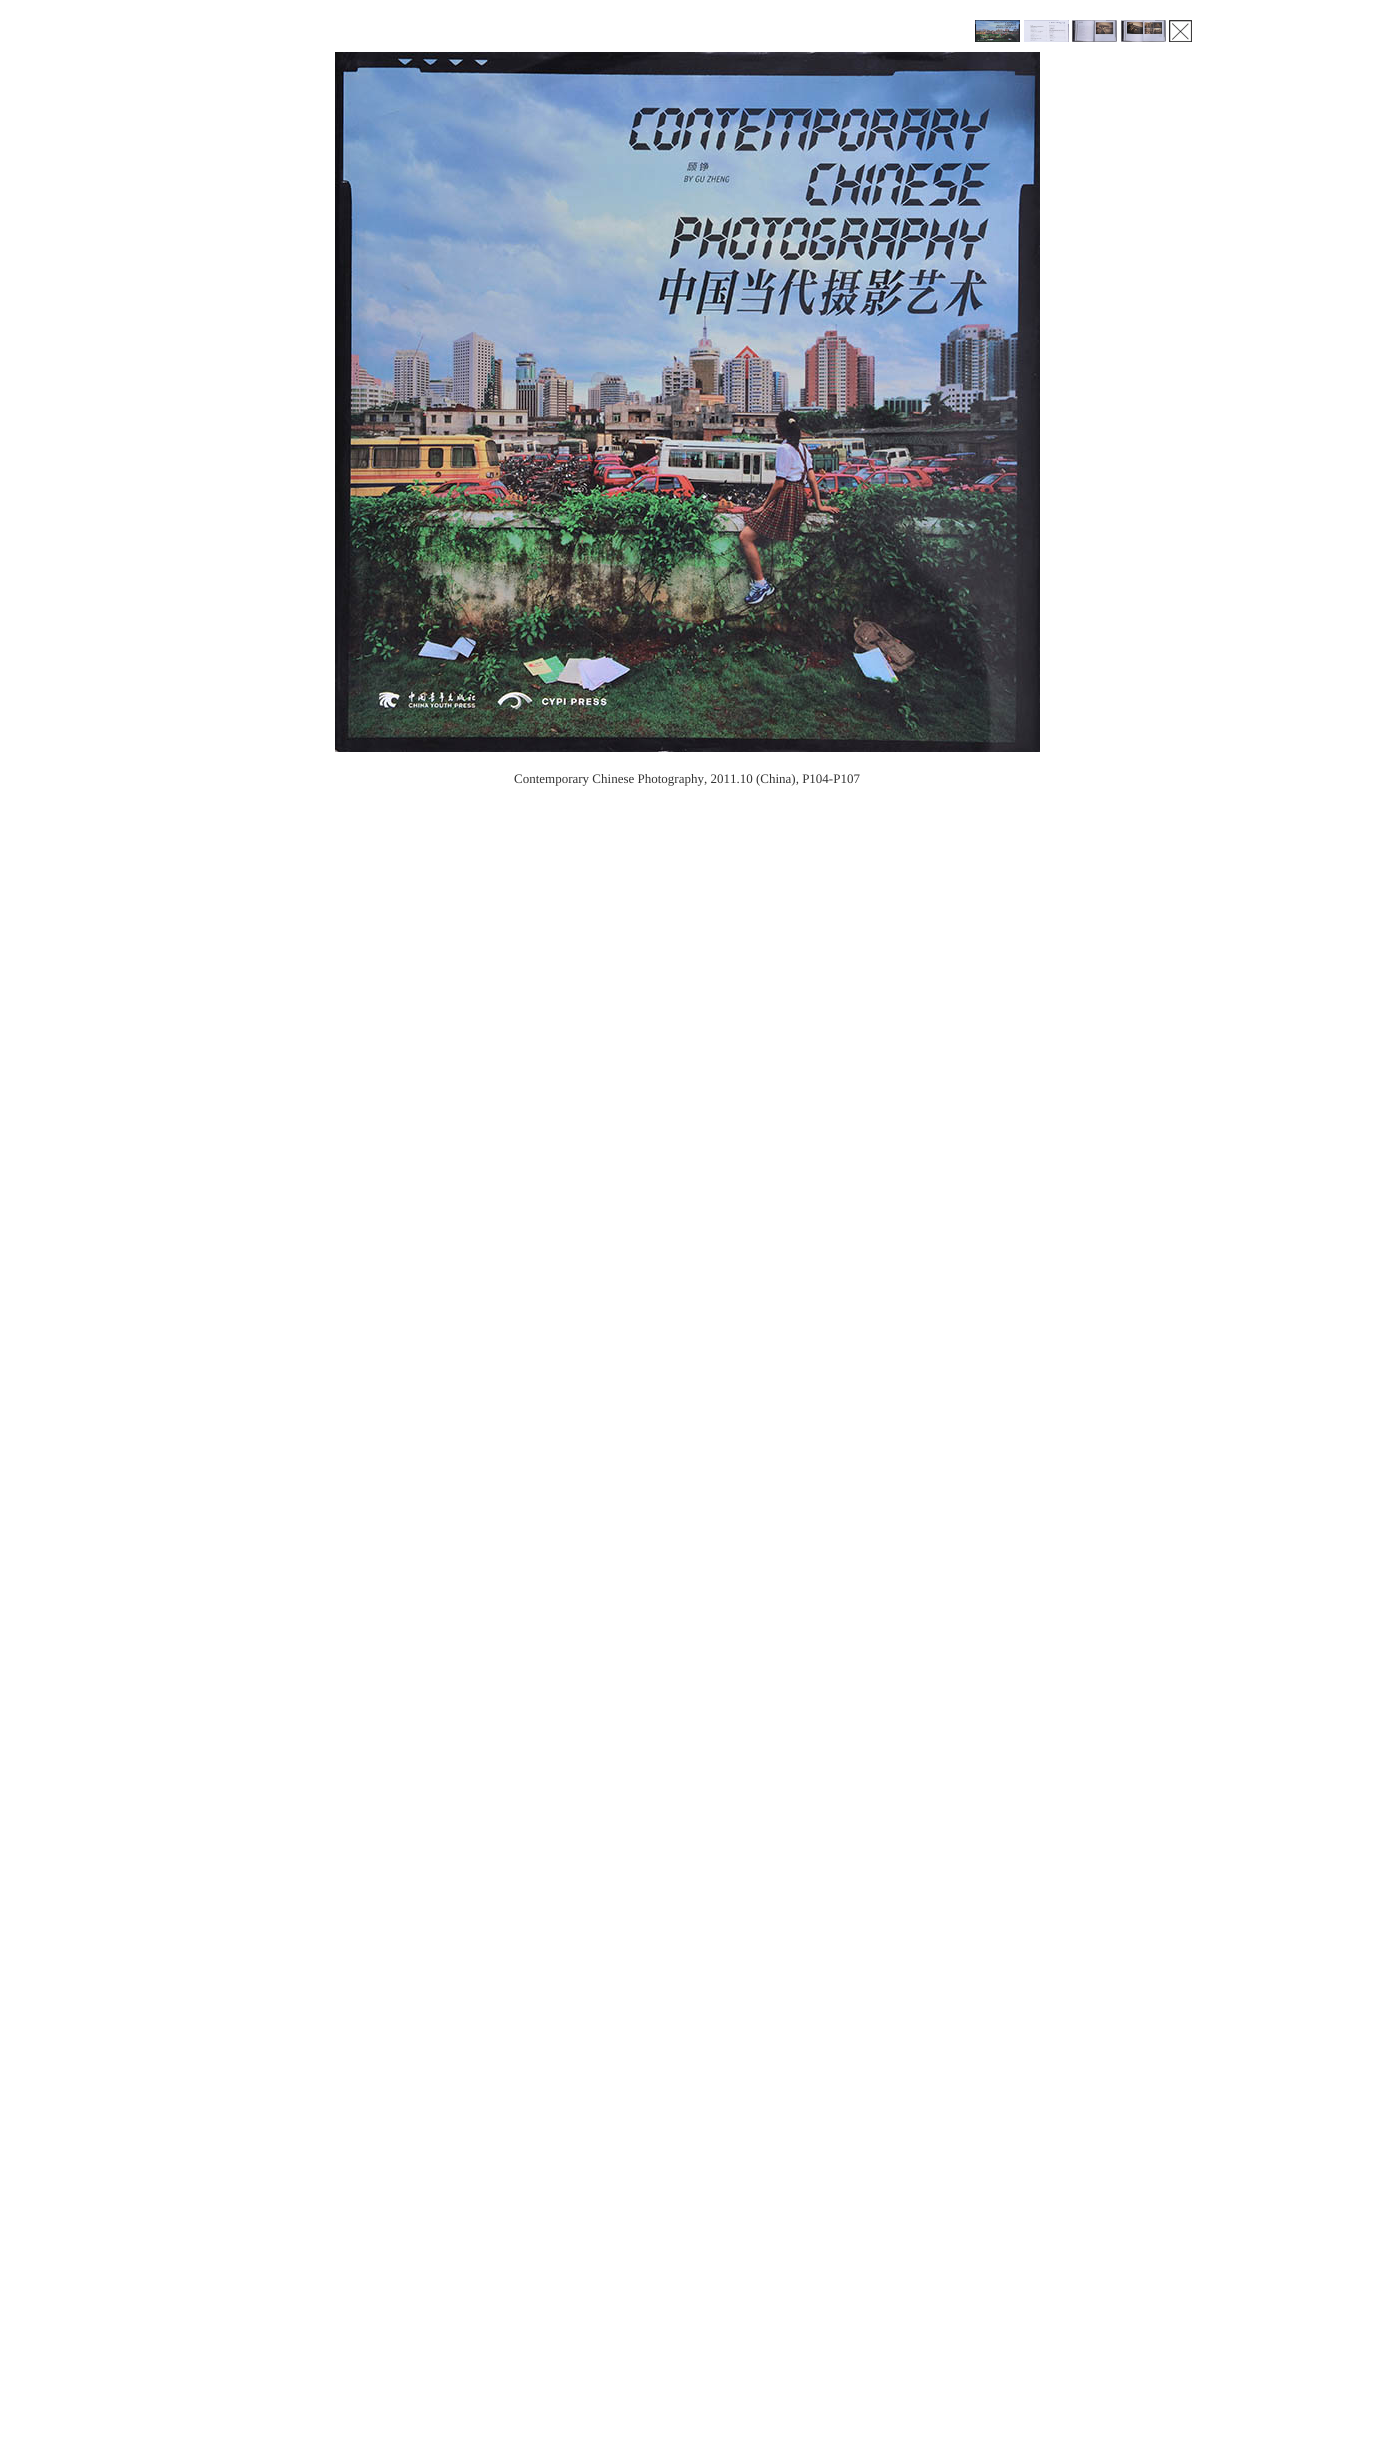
#include <cairo/cairo.h>
#include <math.h>
#include <stddef.h>


static void draw_image(cairo_t *cr, const char *path, double x, double y, double w, double h) {
  cairo_surface_t *image = cairo_image_surface_create_from_png(path);
  cairo_save(cr);
  cairo_set_source_surface(cr, image, x, y);
  cairo_rectangle(cr, x, y, w, h);
  cairo_fill(cr);
  cairo_restore(cr);
  cairo_surface_destroy(image);
}

static void draw(cairo_t *cr) {
  cairo_set_source_rgb(cr, 1, 1, 1);
  cairo_paint(cr);
  draw_image(cr, "images/1.png", 975, 20, 45, 22);
  draw_image(cr, "images/2.png", 1024, 20, 45, 22);
  draw_image(cr, "images/3.png", 1072, 20, 45, 22);
  draw_image(cr, "images/4.png", 1121, 20, 45, 22);
  draw_image(cr, "images/5.png", 1169, 20, 23, 22);
  draw_image(cr, "images/6.png", 335, 52, 705, 700);
  cairo_select_font_face(cr, "Liberation Serif", CAIRO_FONT_SLANT_NORMAL, CAIRO_FONT_WEIGHT_NORMAL);
  cairo_set_font_size(cr, 13);
  cairo_set_source_rgb(cr, 51 / 255.0, 51 / 255.0, 51 / 255.0);
  cairo_move_to(cr, 514, 783);
  cairo_show_text(cr, "Contemporary Chinese Photography, 2011.10 (China), P104-P107");
}

int main(void) {
  cairo_surface_t *surface = cairo_image_surface_create(CAIRO_FORMAT_RGB24, 1374, 2454);
  cairo_t *cr = cairo_create(surface);
  cairo_font_options_t *options = cairo_font_options_create();
  cairo_font_options_set_hint_metrics(options, CAIRO_HINT_METRICS_OFF);
  cairo_font_options_set_hint_style(options, CAIRO_HINT_STYLE_NONE);
  cairo_set_font_options(cr, options);
  cairo_set_miter_limit(cr, 4);
  draw(cr);
  cairo_surface_write_to_png(surface, "out.png");
  cairo_font_options_destroy(options);
  cairo_destroy(cr);
  cairo_surface_destroy(surface);
  return 0;
}
